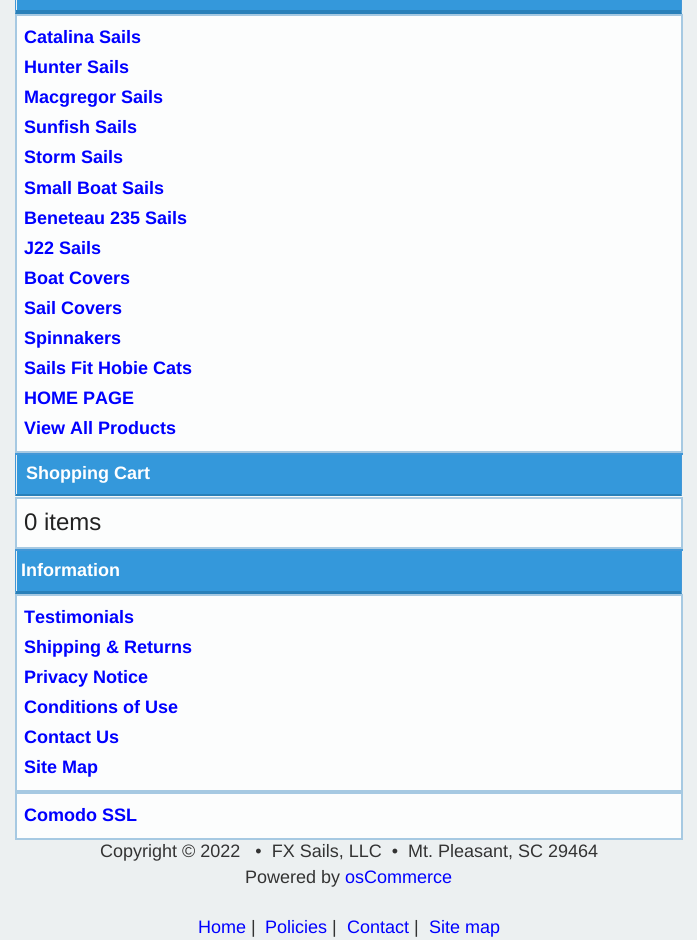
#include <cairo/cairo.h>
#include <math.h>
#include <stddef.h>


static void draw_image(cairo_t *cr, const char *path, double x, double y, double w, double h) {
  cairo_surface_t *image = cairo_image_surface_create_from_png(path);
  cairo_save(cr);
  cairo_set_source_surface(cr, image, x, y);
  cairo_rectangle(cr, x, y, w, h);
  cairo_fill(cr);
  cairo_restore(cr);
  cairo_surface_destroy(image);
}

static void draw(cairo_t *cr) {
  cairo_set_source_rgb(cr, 236 / 255.0, 240 / 255.0, 241 / 255.0);
  cairo_paint(cr);
  cairo_set_source_rgb(cr, 52 / 255.0, 152 / 255.0, 219 / 255.0);
  cairo_rectangle(cr, 17, 0, 664, 10);
  cairo_fill(cr);
  cairo_set_source_rgb(cr, 66 / 255.0, 151 / 255.0, 215 / 255.0);
  cairo_new_path(cr);
  cairo_move_to(cr, 682, -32);
  cairo_line_to(cr, 682, 14);
  cairo_line_to(cr, 681, 10);
  cairo_line_to(cr, 681, -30);
  cairo_close_path(cr);
  cairo_fill(cr);
  cairo_set_source_rgb(cr, 41 / 255.0, 128 / 255.0, 185 / 255.0);
  cairo_new_path(cr);
  cairo_move_to(cr, 682, 14);
  cairo_line_to(cr, 15, 14);
  cairo_line_to(cr, 16, 10);
  cairo_line_to(cr, 681, 10);
  cairo_close_path(cr);
  cairo_fill(cr);
  cairo_set_source_rgb(cr, 66 / 255.0, 151 / 255.0, 215 / 255.0);
  cairo_new_path(cr);
  cairo_move_to(cr, 15, 14);
  cairo_line_to(cr, 15, -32);
  cairo_line_to(cr, 16, -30);
  cairo_line_to(cr, 16, 10);
  cairo_close_path(cr);
  cairo_fill(cr);
  cairo_set_source_rgb(cr, 252 / 255.0, 253 / 255.0, 253 / 255.0);
  cairo_rectangle(cr, 16, 15, 666, 437);
  cairo_fill_preserve(cr);
  cairo_set_source_rgb(cr, 166 / 255.0, 201 / 255.0, 226 / 255.0);
  cairo_stroke(cr);
  cairo_set_source_rgb(cr, 52 / 255.0, 152 / 255.0, 219 / 255.0);
  cairo_rectangle(cr, 17, 455, 664, 39);
  cairo_fill(cr);
  cairo_set_source_rgb(cr, 66 / 255.0, 151 / 255.0, 215 / 255.0);
  cairo_rectangle(cr, 15, 453, 668, 2);
  cairo_fill(cr);
  cairo_new_path(cr);
  cairo_move_to(cr, 682, 453);
  cairo_line_to(cr, 682, 496);
  cairo_line_to(cr, 681, 494);
  cairo_line_to(cr, 681, 454);
  cairo_close_path(cr);
  cairo_fill(cr);
  cairo_set_source_rgb(cr, 41 / 255.0, 128 / 255.0, 185 / 255.0);
  cairo_new_path(cr);
  cairo_move_to(cr, 682, 496);
  cairo_line_to(cr, 15, 496);
  cairo_line_to(cr, 16, 494);
  cairo_line_to(cr, 681, 494);
  cairo_close_path(cr);
  cairo_fill(cr);
  cairo_set_source_rgb(cr, 66 / 255.0, 151 / 255.0, 215 / 255.0);
  cairo_new_path(cr);
  cairo_move_to(cr, 15, 496);
  cairo_line_to(cr, 15, 453);
  cairo_line_to(cr, 16, 454);
  cairo_line_to(cr, 16, 494);
  cairo_close_path(cr);
  cairo_fill(cr);
  cairo_set_source_rgb(cr, 252 / 255.0, 253 / 255.0, 253 / 255.0);
  cairo_rectangle(cr, 16, 498, 666, 50);
  cairo_fill_preserve(cr);
  cairo_set_source_rgb(cr, 166 / 255.0, 201 / 255.0, 226 / 255.0);
  cairo_stroke(cr);
  draw_image(cr, "images/1.png", 15, 496, 668, 1);
  cairo_set_source_rgb(cr, 52 / 255.0, 152 / 255.0, 219 / 255.0);
  cairo_rectangle(cr, 17, 551, 664, 40);
  cairo_fill(cr);
  cairo_set_source_rgb(cr, 66 / 255.0, 151 / 255.0, 215 / 255.0);
  cairo_rectangle(cr, 15, 549, 668, 2);
  cairo_fill(cr);
  cairo_new_path(cr);
  cairo_move_to(cr, 682, 549);
  cairo_line_to(cr, 682, 594);
  cairo_line_to(cr, 681, 591);
  cairo_line_to(cr, 681, 550);
  cairo_close_path(cr);
  cairo_fill(cr);
  cairo_set_source_rgb(cr, 41 / 255.0, 128 / 255.0, 185 / 255.0);
  cairo_new_path(cr);
  cairo_move_to(cr, 682, 594);
  cairo_line_to(cr, 15, 594);
  cairo_line_to(cr, 16, 591);
  cairo_line_to(cr, 681, 591);
  cairo_close_path(cr);
  cairo_fill(cr);
  cairo_set_source_rgb(cr, 66 / 255.0, 151 / 255.0, 215 / 255.0);
  cairo_new_path(cr);
  cairo_move_to(cr, 15, 594);
  cairo_line_to(cr, 15, 549);
  cairo_line_to(cr, 16, 550);
  cairo_line_to(cr, 16, 591);
  cairo_close_path(cr);
  cairo_fill(cr);
  cairo_set_source_rgb(cr, 252 / 255.0, 253 / 255.0, 253 / 255.0);
  cairo_rectangle(cr, 16, 595, 666, 196);
  cairo_fill_preserve(cr);
  cairo_set_source_rgb(cr, 166 / 255.0, 201 / 255.0, 226 / 255.0);
  cairo_stroke(cr);
  cairo_set_source_rgb(cr, 252 / 255.0, 253 / 255.0, 253 / 255.0);
  cairo_rectangle(cr, 16, 793, 666, 46);
  cairo_fill_preserve(cr);
  cairo_set_source_rgb(cr, 166 / 255.0, 201 / 255.0, 226 / 255.0);
  cairo_stroke(cr);
  cairo_select_font_face(cr, "Liberation Sans", CAIRO_FONT_SLANT_NORMAL, CAIRO_FONT_WEIGHT_BOLD);
  cairo_set_font_size(cr, 18);
  cairo_set_source_rgb(cr, 0, 0, 1);
  cairo_move_to(cr, 24, 43);
  cairo_show_text(cr, "Catalina Sails");
  cairo_move_to(cr, 24, 73);
  cairo_show_text(cr, "Hunter Sails");
  cairo_move_to(cr, 24, 103);
  cairo_show_text(cr, "Macgregor Sails");
  cairo_move_to(cr, 24, 133);
  cairo_show_text(cr, "Sunfish Sails");
  cairo_move_to(cr, 24, 163);
  cairo_show_text(cr, "Storm Sails");
  cairo_move_to(cr, 24, 194);
  cairo_show_text(cr, "Small Boat Sails");
  cairo_move_to(cr, 24, 224);
  cairo_show_text(cr, "Beneteau 235 Sails");
  cairo_move_to(cr, 24, 254);
  cairo_show_text(cr, "J22 Sails");
  cairo_move_to(cr, 24, 284);
  cairo_show_text(cr, "Boat Covers");
  cairo_move_to(cr, 24, 314);
  cairo_show_text(cr, "Sail Covers");
  cairo_move_to(cr, 24, 344);
  cairo_show_text(cr, "Spinnakers");
  cairo_move_to(cr, 24, 374);
  cairo_show_text(cr, "Sails Fit Hobie Cats");
  cairo_move_to(cr, 24, 404);
  cairo_show_text(cr, "HOME PAGE");
  cairo_move_to(cr, 24, 434);
  cairo_show_text(cr, "View All Products");
  cairo_set_source_rgb(cr, 1, 1, 1);
  cairo_move_to(cr, 26, 479);
  cairo_show_text(cr, "Shopping Cart");
  cairo_select_font_face(cr, "Liberation Sans", CAIRO_FONT_SLANT_NORMAL, CAIRO_FONT_WEIGHT_NORMAL);
  cairo_set_font_size(cr, 24);
  cairo_set_source_rgb(cr, 34 / 255.0, 34 / 255.0, 34 / 255.0);
  cairo_move_to(cr, 24, 530);
  cairo_show_text(cr, "0 items");
  cairo_select_font_face(cr, "Liberation Sans", CAIRO_FONT_SLANT_NORMAL, CAIRO_FONT_WEIGHT_BOLD);
  cairo_set_font_size(cr, 18);
  cairo_set_source_rgb(cr, 1, 1, 1);
  cairo_move_to(cr, 21, 576);
  cairo_show_text(cr, "Information");
  cairo_set_source_rgb(cr, 0, 0, 1);
  cairo_move_to(cr, 24, 623);
  cairo_show_text(cr, "Testimonials");
  cairo_move_to(cr, 24, 653);
  cairo_show_text(cr, "Shipping & Returns");
  cairo_move_to(cr, 24, 683);
  cairo_show_text(cr, "Privacy Notice");
  cairo_move_to(cr, 24, 713);
  cairo_show_text(cr, "Conditions of Use");
  cairo_move_to(cr, 24, 743);
  cairo_show_text(cr, "Contact Us");
  cairo_move_to(cr, 24, 773);
  cairo_show_text(cr, "Site Map");
  cairo_move_to(cr, 24, 821);
  cairo_show_text(cr, "Comodo SSL");
  cairo_select_font_face(cr, "Liberation Sans", CAIRO_FONT_SLANT_NORMAL, CAIRO_FONT_WEIGHT_NORMAL);
  cairo_set_source_rgb(cr, 51 / 255.0, 51 / 255.0, 51 / 255.0);
  cairo_move_to(cr, 100, 857);
  cairo_show_text(cr, "Copyright © 2022   •  FX Sails, LLC  •  Mt. Pleasant, SC 29464");
  cairo_move_to(cr, 245, 883);
  cairo_show_text(cr, "Powered by");
  cairo_set_source_rgb(cr, 0, 0, 1);
  cairo_move_to(cr, 345, 883);
  cairo_show_text(cr, "osCommerce");
  cairo_move_to(cr, 198, 933);
  cairo_show_text(cr, "Home");
  cairo_set_source_rgb(cr, 51 / 255.0, 51 / 255.0, 51 / 255.0);
  cairo_move_to(cr, 251, 933);
  cairo_show_text(cr, "|");
  cairo_set_source_rgb(cr, 0, 0, 1);
  cairo_move_to(cr, 265, 933);
  cairo_show_text(cr, "Policies");
  cairo_set_source_rgb(cr, 51 / 255.0, 51 / 255.0, 51 / 255.0);
  cairo_move_to(cr, 332, 933);
  cairo_show_text(cr, "|");
  cairo_set_source_rgb(cr, 0, 0, 1);
  cairo_move_to(cr, 347, 933);
  cairo_show_text(cr, "Contact");
  cairo_set_source_rgb(cr, 51 / 255.0, 51 / 255.0, 51 / 255.0);
  cairo_move_to(cr, 414, 933);
  cairo_show_text(cr, "|");
  cairo_set_source_rgb(cr, 0, 0, 1);
  cairo_move_to(cr, 429, 933);
  cairo_show_text(cr, "Site map");
}

int main(void) {
  cairo_surface_t *surface = cairo_image_surface_create(CAIRO_FORMAT_RGB24, 697, 940);
  cairo_t *cr = cairo_create(surface);
  cairo_font_options_t *options = cairo_font_options_create();
  cairo_font_options_set_hint_metrics(options, CAIRO_HINT_METRICS_OFF);
  cairo_font_options_set_hint_style(options, CAIRO_HINT_STYLE_NONE);
  cairo_set_font_options(cr, options);
  cairo_set_miter_limit(cr, 4);
  draw(cr);
  cairo_surface_write_to_png(surface, "out.png");
  cairo_font_options_destroy(options);
  cairo_destroy(cr);
  cairo_surface_destroy(surface);
  return 0;
}
